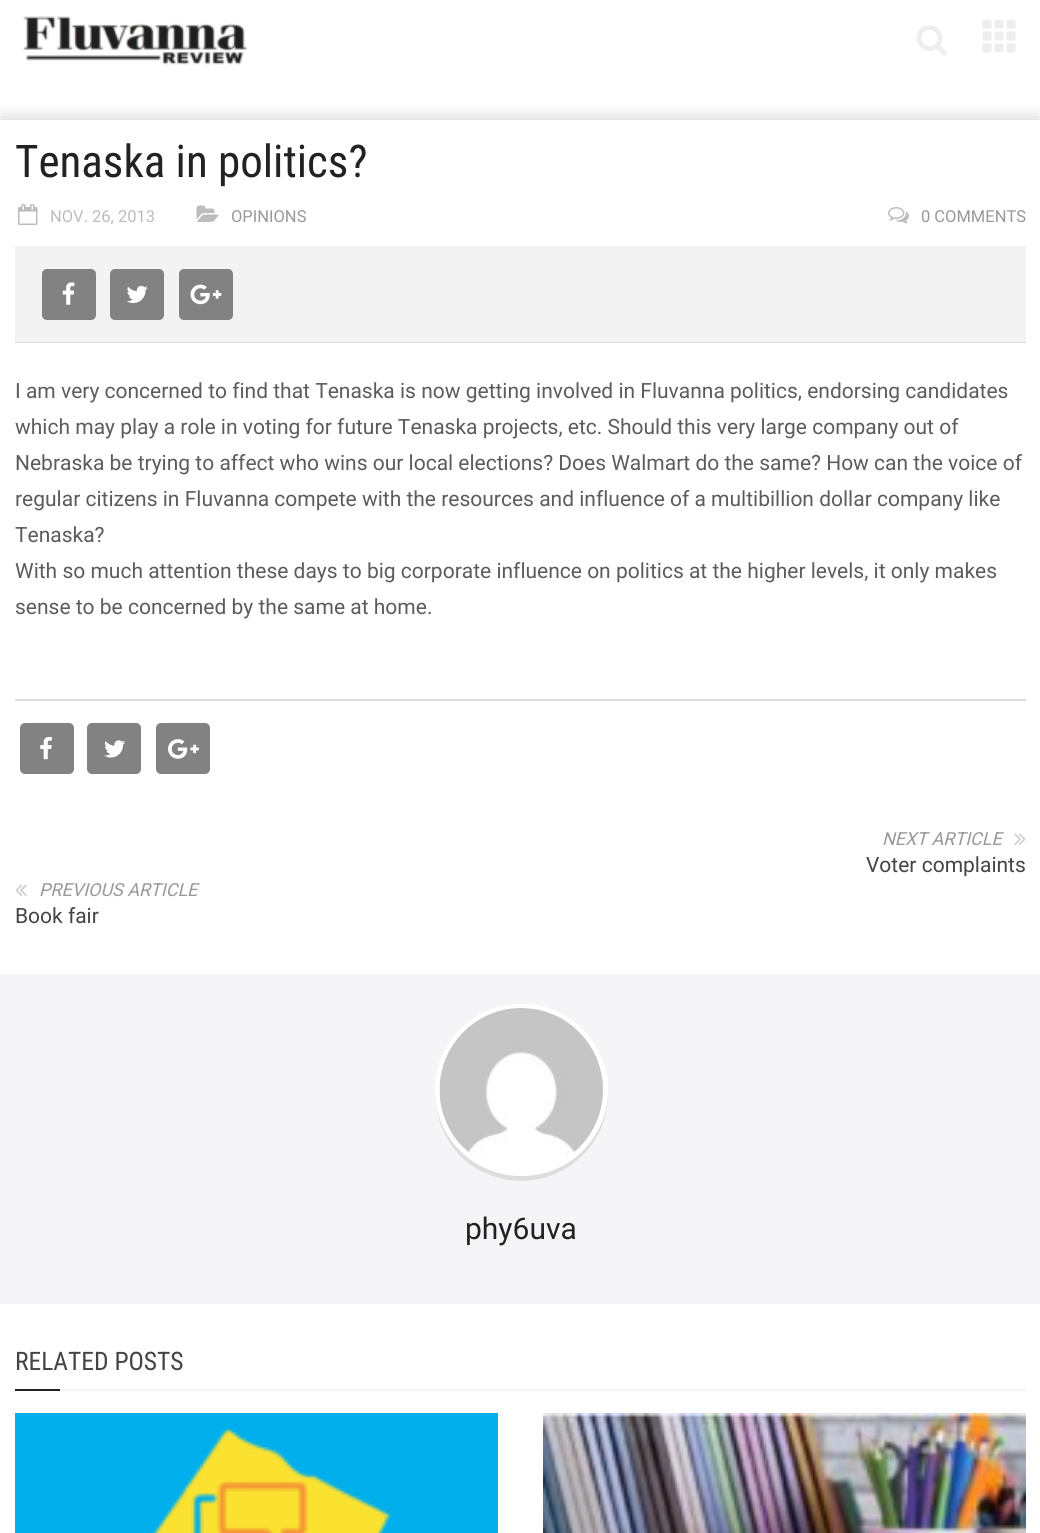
#include <cairo/cairo.h>
#include <math.h>
#include <stddef.h>


static void rounded_rect(cairo_t *cr, double x, double y, double w, double h, double r) {
  cairo_new_sub_path(cr);
  cairo_arc(cr, x + w - r, y + h - r, r, 0, M_PI / 2);
  cairo_arc(cr, x + r, y + h - r, r, M_PI / 2, M_PI);
  cairo_arc(cr, x + r, y + r, r, M_PI, 1.5 * M_PI);
  cairo_arc(cr, x + w - r, y + r, r, 1.5 * M_PI, 2 * M_PI);
  cairo_close_path(cr);
}

static void draw_shadow(cairo_t *cr, double x, double y, double w, double h, double r, double blur, double alpha) {
  cairo_push_group_with_content(cr, CAIRO_CONTENT_ALPHA);
  cairo_set_operator(cr, CAIRO_OPERATOR_SOURCE);
  for (int i = 15; i >= -15 && fmin(w, h) + blur * i / 3 > 0; i -= 2) {
    double e = blur * i / 6;
    cairo_set_source_rgba(cr, 0, 0, 0, alpha * erfc((i - 1) / 8.5) / 2);
    rounded_rect(cr, x - e, y - e, w + 2 * e, h + 2 * e, fmax(0, fmin(r + e + blur * .6, fmin(w, h) / 2 + e)));
    cairo_fill(cr);
  }
  cairo_pattern_t *soft = cairo_pop_group(cr);
  cairo_mask(cr, soft);
  cairo_pattern_destroy(soft);
}

static void draw_image(cairo_t *cr, const char *path, double x, double y, double w, double h) {
  cairo_surface_t *image = cairo_image_surface_create_from_png(path);
  cairo_save(cr);
  cairo_set_source_surface(cr, image, x, y);
  cairo_rectangle(cr, x, y, w, h);
  cairo_fill(cr);
  cairo_restore(cr);
  cairo_surface_destroy(image);
}

static void draw(cairo_t *cr) {
  cairo_set_source_rgb(cr, 1, 1, 1);
  cairo_paint(cr);
  draw_image(cr, "images/1.png", 23, 16, 225, 49);
  draw_image(cr, "images/2.png", 916, 25, 31, 31);
  draw_image(cr, "images/3.png", 982, 19, 34, 34);
  cairo_save(cr);
  cairo_rectangle(cr, 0, 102, 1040, 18);
  cairo_clip(cr);
  cairo_set_source_rgb(cr, 204 / 255.0, 204 / 255.0, 204 / 255.0);
  draw_shadow(cr, 0, 120, 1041, 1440, 0, 9, 1);
  cairo_restore(cr);
  cairo_set_source_rgb(cr, 218 / 255.0, 218 / 255.0, 218 / 255.0);
  cairo_rectangle(cr, 15, 342, 1011, 1);
  cairo_fill(cr);
  draw_image(cr, "images/4.png", 18, 204, 20, 21);
  draw_image(cr, "images/5.png", 196, 205, 23, 17);
  draw_image(cr, "images/6.png", 888, 207, 21, 17);
  cairo_set_source_rgb(cr, 243 / 255.0, 243 / 255.0, 243 / 255.0);
  cairo_rectangle(cr, 15, 246, 1011, 96);
  cairo_fill(cr);
  cairo_set_source_rgb(cr, 130 / 255.0, 130 / 255.0, 130 / 255.0);
  rounded_rect(cr, 42, 269, 54, 51, 5);
  cairo_fill(cr);
  draw_image(cr, "images/7.png", 62, 282, 13, 23);
  rounded_rect(cr, 110, 269, 54, 51, 5);
  cairo_fill(cr);
  draw_image(cr, "images/8.png", 126, 285, 22, 18);
  rounded_rect(cr, 179, 269, 54, 51, 5);
  cairo_fill(cr);
  draw_image(cr, "images/9.png", 190, 284, 32, 21);
  cairo_set_source_rgb(cr, 218 / 255.0, 218 / 255.0, 218 / 255.0);
  cairo_rectangle(cr, 15, 699, 1011, 2);
  cairo_fill(cr);
  cairo_set_source_rgb(cr, 130 / 255.0, 130 / 255.0, 130 / 255.0);
  rounded_rect(cr, 20, 723, 54, 51, 5);
  cairo_fill(cr);
  draw_image(cr, "images/10.png", 40, 736, 12, 24);
  rounded_rect(cr, 87, 723, 54, 51, 5);
  cairo_fill(cr);
  draw_image(cr, "images/11.png", 104, 740, 21, 18);
  rounded_rect(cr, 156, 723, 54, 51, 5);
  cairo_fill(cr);
  draw_image(cr, "images/12.png", 168, 739, 31, 20);
  draw_image(cr, "images/13.png", 1014, 833, 12, 12);
  draw_image(cr, "images/14.png", 15, 884, 12, 12);
  cairo_set_source_rgb(cr, 245 / 255.0, 245 / 255.0, 247 / 255.0);
  cairo_rectangle(cr, 0, 974, 1040, 330);
  cairo_fill(cr);
  cairo_set_source_rgb(cr, 221 / 255.0, 221 / 255.0, 221 / 255.0);
  cairo_new_path(cr);
  cairo_move_to(cr, 435, 1092);
  cairo_curve_to(cr, 435, 1110, 440, 1128, 450, 1143);
  cairo_curve_to(cr, 459, 1157, 472, 1168, 488, 1174);
  cairo_curve_to(cr, 549, 1200, 616, 1149, 607, 1083);
  cairo_curve_to(cr, 609, 1102, 604, 1122, 593, 1138);
  cairo_curve_to(cr, 546, 1207, 437, 1175, 435, 1092);
  cairo_close_path(cr);
  cairo_fill(cr);
  rounded_rect(cr, 437.5, 1006.5, 168, 167, 83.5);
  cairo_set_source_rgb(cr, 1, 1, 1);
  cairo_set_line_width(cr, 5);
  cairo_stroke(cr);
  draw_image(cr, "images/15.png", 439, 1008, 164, 163);
  cairo_set_source_rgb(cr, 245 / 255.0, 245 / 255.0, 245 / 255.0);
  cairo_rectangle(cr, 60, 1389, 966, 2);
  cairo_fill(cr);
  cairo_set_source_rgb(cr, 34 / 255.0, 34 / 255.0, 34 / 255.0);
  cairo_rectangle(cr, 15, 1389, 45, 2);
  cairo_fill(cr);
  draw_image(cr, "images/16.png", 15, 1413, 483, 120);
  draw_image(cr, "images/17.png", 543, 1413, 483, 120);
  cairo_select_font_face(cr, "Roboto Condensed", CAIRO_FONT_SLANT_NORMAL, CAIRO_FONT_WEIGHT_NORMAL);
  cairo_set_font_size(cr, 45);
  cairo_move_to(cr, 15, 177);
  cairo_show_text(cr, "Tenaska in politics?");
  cairo_select_font_face(cr, "Roboto", CAIRO_FONT_SLANT_NORMAL, CAIRO_FONT_WEIGHT_NORMAL);
  cairo_set_font_size(cr, 16.5);
  cairo_set_source_rgb(cr, 188 / 255.0, 188 / 255.0, 188 / 255.0);
  cairo_move_to(cr, 50, 222);
  cairo_show_text(cr, "NOV. 26, 2013");
  cairo_set_source_rgb(cr, 153 / 255.0, 153 / 255.0, 153 / 255.0);
  cairo_move_to(cr, 231, 222);
  cairo_show_text(cr, "OPINIONS");
  cairo_move_to(cr, 921, 222);
  cairo_show_text(cr, "0 COMMENTS");
  cairo_set_font_size(cr, 21);
  cairo_set_source_rgb(cr, 92 / 255.0, 92 / 255.0, 92 / 255.0);
  cairo_move_to(cr, 15, 398);
  cairo_show_text(cr, "I am very concerned to find that Tenaska is now getting involved in Fluvanna politics, endorsing candidates");
  cairo_move_to(cr, 15, 434);
  cairo_show_text(cr, "which may play a role in voting for future Tenaska projects, etc. Should this very large company out of");
  cairo_move_to(cr, 15, 470);
  cairo_show_text(cr, "Nebraska be trying to affect who wins our local elections? Does Walmart do the same? How can the voice of");
  cairo_move_to(cr, 15, 506);
  cairo_show_text(cr, "regular citizens in Fluvanna compete with the resources and influence of a multibillion dollar company like");
  cairo_move_to(cr, 15, 542);
  cairo_show_text(cr, "Tenaska?");
  cairo_move_to(cr, 15, 578);
  cairo_show_text(cr, "With so much attention these days to big corporate influence on politics at the higher levels, it only makes");
  cairo_move_to(cr, 15, 614);
  cairo_show_text(cr, "sense to be concerned by the same at home.");
  cairo_select_font_face(cr, "Roboto", CAIRO_FONT_SLANT_ITALIC, CAIRO_FONT_WEIGHT_NORMAL);
  cairo_set_font_size(cr, 18);
  cairo_set_source_rgb(cr, 153 / 255.0, 153 / 255.0, 153 / 255.0);
  cairo_move_to(cr, 882, 845);
  cairo_show_text(cr, "NEXT ARTICLE");
  cairo_select_font_face(cr, "Roboto", CAIRO_FONT_SLANT_NORMAL, CAIRO_FONT_WEIGHT_NORMAL);
  cairo_set_font_size(cr, 21);
  cairo_set_source_rgb(cr, 68 / 255.0, 68 / 255.0, 68 / 255.0);
  cairo_move_to(cr, 866, 872);
  cairo_show_text(cr, "Voter complaints");
  cairo_select_font_face(cr, "Roboto", CAIRO_FONT_SLANT_ITALIC, CAIRO_FONT_WEIGHT_NORMAL);
  cairo_set_font_size(cr, 18);
  cairo_set_source_rgb(cr, 153 / 255.0, 153 / 255.0, 153 / 255.0);
  cairo_move_to(cr, 39, 896);
  cairo_show_text(cr, "PREVIOUS ARTICLE");
  cairo_select_font_face(cr, "Roboto", CAIRO_FONT_SLANT_NORMAL, CAIRO_FONT_WEIGHT_NORMAL);
  cairo_set_font_size(cr, 21);
  cairo_set_source_rgb(cr, 68 / 255.0, 68 / 255.0, 68 / 255.0);
  cairo_move_to(cr, 15, 923);
  cairo_show_text(cr, "Book fair");
  cairo_set_font_size(cr, 30);
  cairo_set_source_rgb(cr, 34 / 255.0, 34 / 255.0, 34 / 255.0);
  cairo_move_to(cr, 465, 1239);
  cairo_show_text(cr, "phy6uva");
  cairo_select_font_face(cr, "Roboto Condensed", CAIRO_FONT_SLANT_NORMAL, CAIRO_FONT_WEIGHT_NORMAL);
  cairo_set_font_size(cr, 25.5);
  cairo_set_source_rgb(cr, 68 / 255.0, 68 / 255.0, 68 / 255.0);
  cairo_move_to(cr, 15, 1370);
  cairo_show_text(cr, "RELATED POSTS");
}

int main(void) {
  cairo_surface_t *surface = cairo_image_surface_create(CAIRO_FORMAT_RGB24, 1040, 1533);
  cairo_t *cr = cairo_create(surface);
  cairo_font_options_t *options = cairo_font_options_create();
  cairo_font_options_set_hint_metrics(options, CAIRO_HINT_METRICS_OFF);
  cairo_font_options_set_hint_style(options, CAIRO_HINT_STYLE_NONE);
  cairo_set_font_options(cr, options);
  cairo_set_miter_limit(cr, 4);
  draw(cr);
  cairo_surface_write_to_png(surface, "out.png");
  cairo_font_options_destroy(options);
  cairo_destroy(cr);
  cairo_surface_destroy(surface);
  return 0;
}
